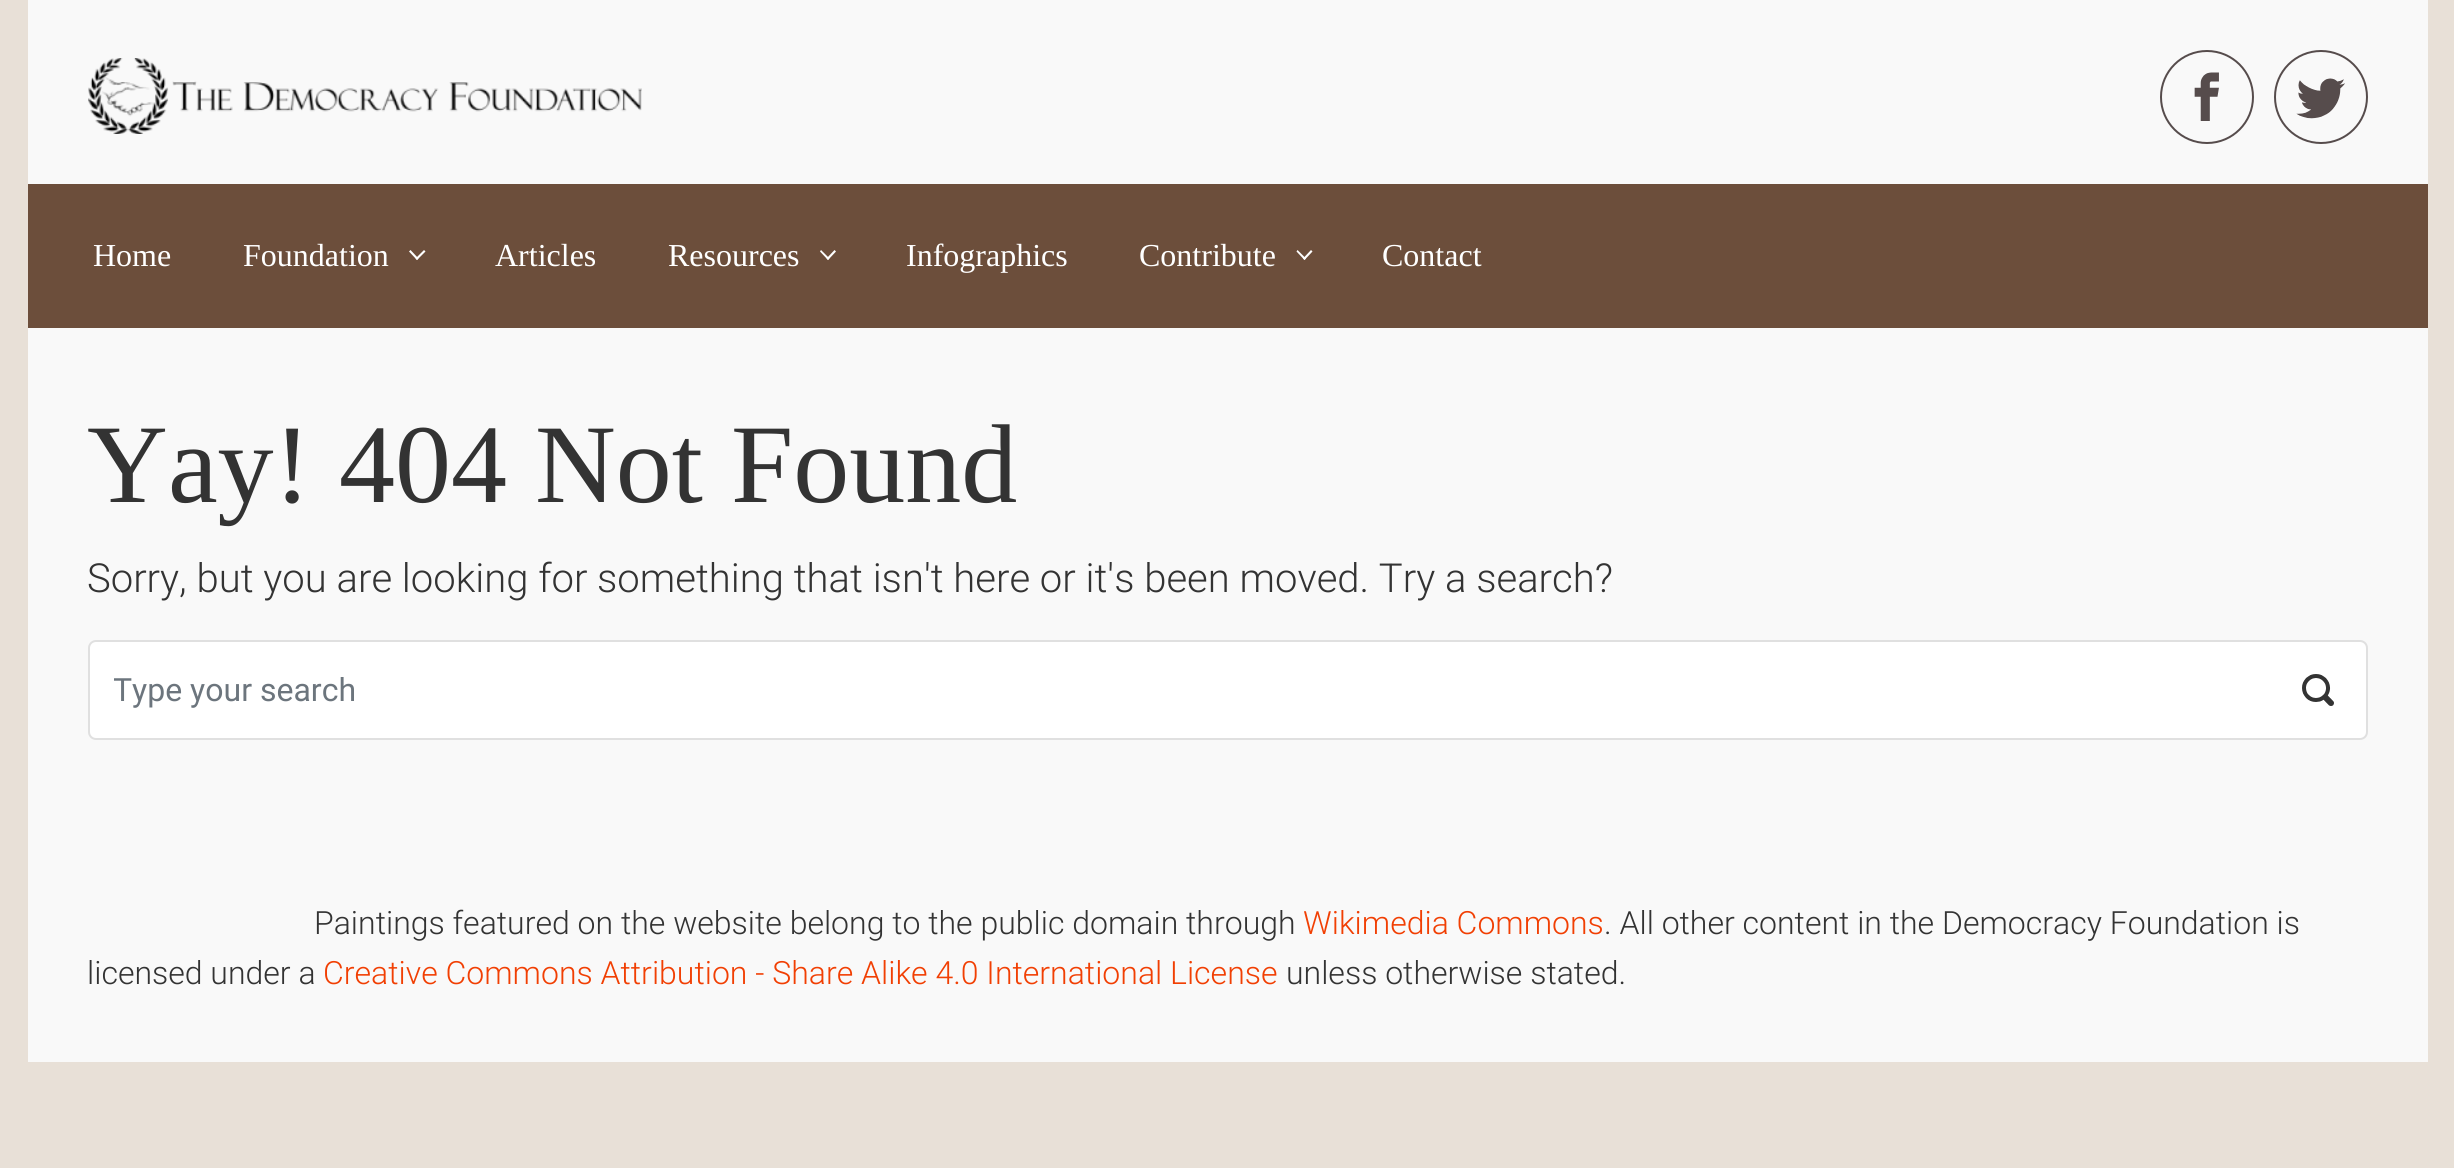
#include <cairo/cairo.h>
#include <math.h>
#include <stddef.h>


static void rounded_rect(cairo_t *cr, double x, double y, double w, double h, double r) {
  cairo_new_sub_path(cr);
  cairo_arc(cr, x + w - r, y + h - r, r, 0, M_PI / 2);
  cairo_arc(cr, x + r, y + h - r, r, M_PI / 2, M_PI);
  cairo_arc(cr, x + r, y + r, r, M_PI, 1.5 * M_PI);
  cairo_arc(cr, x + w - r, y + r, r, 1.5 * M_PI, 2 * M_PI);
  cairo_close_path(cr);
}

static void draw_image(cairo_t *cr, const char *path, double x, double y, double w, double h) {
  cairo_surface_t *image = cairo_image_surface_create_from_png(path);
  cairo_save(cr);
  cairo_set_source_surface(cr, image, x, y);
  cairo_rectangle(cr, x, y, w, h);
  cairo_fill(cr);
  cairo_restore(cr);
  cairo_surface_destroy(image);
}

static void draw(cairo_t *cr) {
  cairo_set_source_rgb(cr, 232 / 255.0, 224 / 255.0, 215 / 255.0);
  cairo_paint(cr);
  cairo_set_source_rgb(cr, 249 / 255.0, 249 / 255.0, 249 / 255.0);
  cairo_rectangle(cr, 28, 0, 2400, 1062);
  cairo_fill(cr);
  draw_image(cr, "images/1.png", 88, 58, 554, 76);
  cairo_arc(cr, 2207, 97, 46, 0, 2 * M_PI);
  cairo_set_source_rgb(cr, 86 / 255.0, 76 / 255.0, 76 / 255.0);
  cairo_stroke(cr);
  draw_image(cr, "images/2.png", 2194, 72, 25, 49);
  cairo_arc(cr, 2321, 97, 46, 0, 2 * M_PI);
  cairo_stroke(cr);
  draw_image(cr, "images/3.png", 2296, 78, 49, 41);
  cairo_set_source_rgb(cr, 108 / 255.0, 78 / 255.0, 59 / 255.0);
  cairo_rectangle(cr, 28, 184, 2400, 144);
  cairo_fill(cr);
  cairo_set_source_rgb(cr, 1, 1, 1);
  cairo_new_path(cr);
  cairo_move_to(cr, 424, 250);
  cairo_line_to(cr, 425.5, 251.5);
  cairo_line_to(cr, 417, 260);
  cairo_line_to(cr, 415.5, 258.5);
  cairo_close_path(cr);
  cairo_fill(cr);
  cairo_new_path(cr);
  cairo_move_to(cr, 410.5, 250);
  cairo_line_to(cr, 418.5, 258.5);
  cairo_line_to(cr, 417, 260);
  cairo_line_to(cr, 409, 251.5);
  cairo_close_path(cr);
  cairo_fill(cr);
  cairo_new_path(cr);
  cairo_move_to(cr, 834.5, 250);
  cairo_line_to(cr, 836, 251.5);
  cairo_line_to(cr, 828, 260);
  cairo_line_to(cr, 826.5, 258.5);
  cairo_close_path(cr);
  cairo_fill(cr);
  cairo_new_path(cr);
  cairo_move_to(cr, 821, 250);
  cairo_line_to(cr, 829.5, 258.5);
  cairo_line_to(cr, 828, 260);
  cairo_line_to(cr, 820, 251.5);
  cairo_close_path(cr);
  cairo_fill(cr);
  cairo_new_path(cr);
  cairo_move_to(cr, 1311, 250);
  cairo_line_to(cr, 1312.5, 251.5);
  cairo_line_to(cr, 1304.5, 260);
  cairo_line_to(cr, 1303, 258.5);
  cairo_close_path(cr);
  cairo_fill(cr);
  cairo_new_path(cr);
  cairo_move_to(cr, 1297.5, 250);
  cairo_line_to(cr, 1306, 258.5);
  cairo_line_to(cr, 1304.5, 260);
  cairo_line_to(cr, 1296.5, 251.5);
  cairo_close_path(cr);
  cairo_fill(cr);
  rounded_rect(cr, 89, 641, 2278, 98, 7);
  cairo_fill_preserve(cr);
  cairo_set_source_rgb(cr, 224 / 255.0, 224 / 255.0, 224 / 255.0);
  cairo_stroke(cr);
  draw_image(cr, "images/4.png", 2302, 674, 32, 32);
  cairo_select_font_face(cr, "Liberation Serif", CAIRO_FONT_SLANT_NORMAL, CAIRO_FONT_WEIGHT_NORMAL);
  cairo_set_font_size(cr, 32);
  cairo_set_source_rgb(cr, 1, 1, 1);
  cairo_move_to(cr, 93, 266);
  cairo_show_text(cr, "Home");
  cairo_move_to(cr, 243, 266);
  cairo_show_text(cr, "Foundation");
  cairo_move_to(cr, 495, 266);
  cairo_show_text(cr, "Articles");
  cairo_move_to(cr, 668, 266);
  cairo_show_text(cr, "Resources");
  cairo_move_to(cr, 906, 266);
  cairo_show_text(cr, "Infographics");
  cairo_move_to(cr, 1139, 266);
  cairo_show_text(cr, "Contribute");
  cairo_move_to(cr, 1382, 266);
  cairo_show_text(cr, "Contact");
  cairo_set_font_size(cr, 112);
  cairo_set_source_rgb(cr, 51 / 255.0, 51 / 255.0, 51 / 255.0);
  cairo_move_to(cr, 87, 502);
  cairo_show_text(cr, "Yay! 404 Not Found");
  cairo_select_font_face(cr, "Roboto Light", CAIRO_FONT_SLANT_NORMAL, CAIRO_FONT_WEIGHT_NORMAL);
  cairo_set_font_size(cr, 40);
  cairo_move_to(cr, 87, 592);
  cairo_show_text(cr, "Sorry, but you are looking for something that isn't here or it's been moved. Try a search?");
  cairo_save(cr);
  cairo_rectangle(cr, 114, 670, 2228, 38);
  cairo_clip(cr);
  cairo_select_font_face(cr, "Roboto", CAIRO_FONT_SLANT_NORMAL, CAIRO_FONT_WEIGHT_NORMAL);
  cairo_set_font_size(cr, 32);
  cairo_set_source_rgb(cr, 108 / 255.0, 117 / 255.0, 125 / 255.0);
  cairo_move_to(cr, 113, 701);
  cairo_show_text(cr, "Type your search");
  cairo_restore(cr);
  cairo_set_font_size(cr, 32);
  cairo_move_to(cr, 314, 934);
  cairo_show_text(cr, "Paintings featured on the website belong to the public domain through");
  cairo_set_source_rgb(cr, 241 / 255.0, 63 / 255.0, 3 / 255.0);
  cairo_move_to(cr, 1303, 934);
  cairo_show_text(cr, "Wikimedia Commons");
  cairo_set_source_rgb(cr, 51 / 255.0, 51 / 255.0, 51 / 255.0);
  cairo_move_to(cr, 1604, 934);
  cairo_show_text(cr, ". All other content in the Democracy Foundation is");
  cairo_move_to(cr, 87, 984);
  cairo_show_text(cr, "licensed under a");
  cairo_set_source_rgb(cr, 241 / 255.0, 63 / 255.0, 3 / 255.0);
  cairo_move_to(cr, 323, 984);
  cairo_show_text(cr, "Creative Commons Attribution - Share Alike 4.0 International License");
  cairo_set_source_rgb(cr, 51 / 255.0, 51 / 255.0, 51 / 255.0);
  cairo_move_to(cr, 1286, 984);
  cairo_show_text(cr, "unless otherwise stated.");
}

int main(void) {
  cairo_surface_t *surface = cairo_image_surface_create(CAIRO_FORMAT_RGB24, 2454, 1168);
  cairo_t *cr = cairo_create(surface);
  cairo_font_options_t *options = cairo_font_options_create();
  cairo_font_options_set_hint_metrics(options, CAIRO_HINT_METRICS_OFF);
  cairo_font_options_set_hint_style(options, CAIRO_HINT_STYLE_NONE);
  cairo_set_font_options(cr, options);
  cairo_set_miter_limit(cr, 4);
  draw(cr);
  cairo_surface_write_to_png(surface, "out.png");
  cairo_font_options_destroy(options);
  cairo_destroy(cr);
  cairo_surface_destroy(surface);
  return 0;
}
